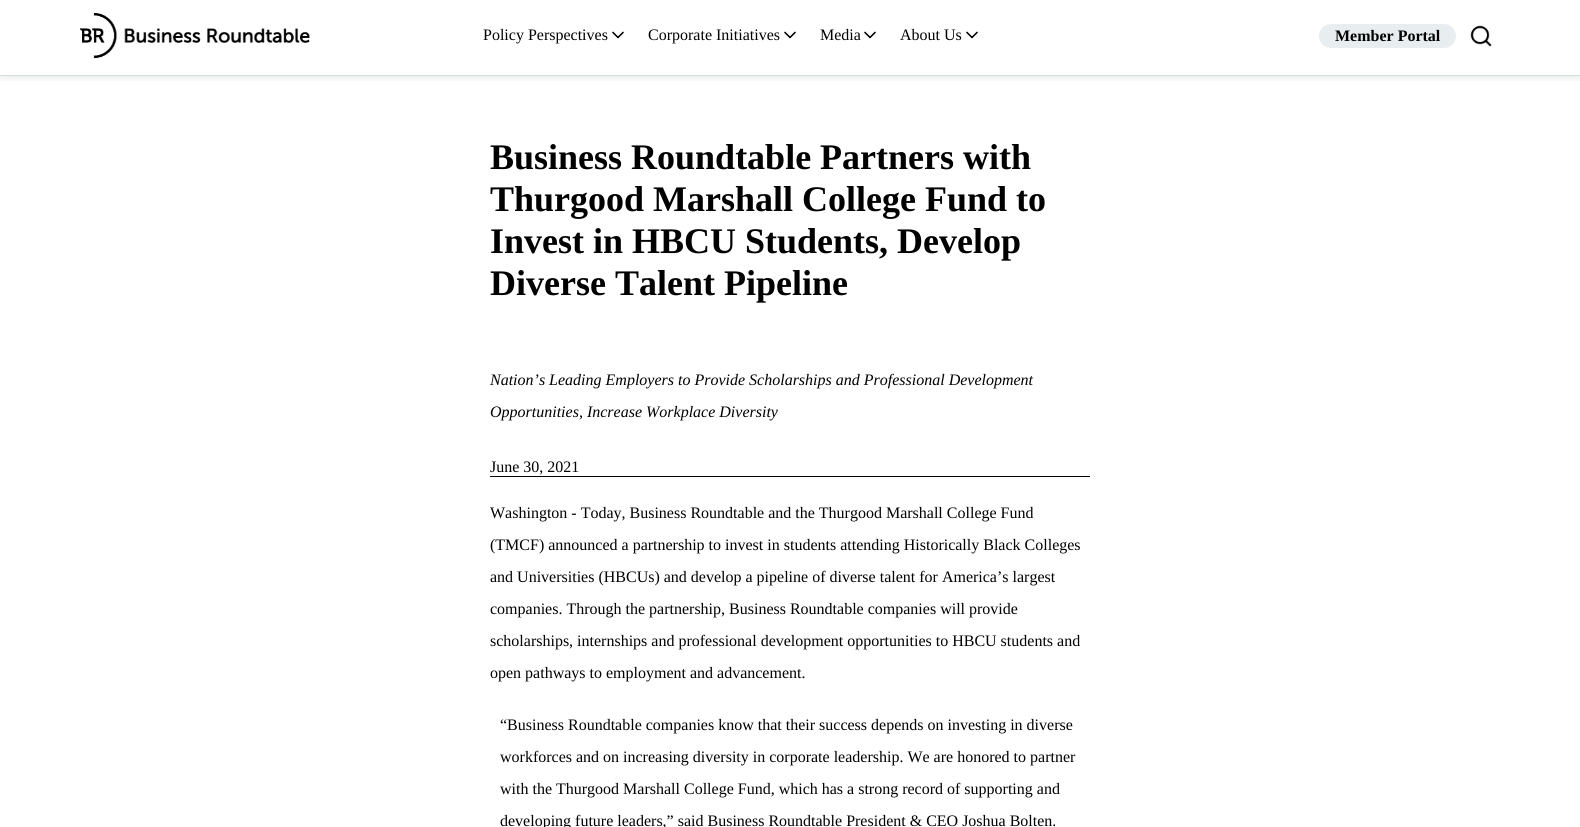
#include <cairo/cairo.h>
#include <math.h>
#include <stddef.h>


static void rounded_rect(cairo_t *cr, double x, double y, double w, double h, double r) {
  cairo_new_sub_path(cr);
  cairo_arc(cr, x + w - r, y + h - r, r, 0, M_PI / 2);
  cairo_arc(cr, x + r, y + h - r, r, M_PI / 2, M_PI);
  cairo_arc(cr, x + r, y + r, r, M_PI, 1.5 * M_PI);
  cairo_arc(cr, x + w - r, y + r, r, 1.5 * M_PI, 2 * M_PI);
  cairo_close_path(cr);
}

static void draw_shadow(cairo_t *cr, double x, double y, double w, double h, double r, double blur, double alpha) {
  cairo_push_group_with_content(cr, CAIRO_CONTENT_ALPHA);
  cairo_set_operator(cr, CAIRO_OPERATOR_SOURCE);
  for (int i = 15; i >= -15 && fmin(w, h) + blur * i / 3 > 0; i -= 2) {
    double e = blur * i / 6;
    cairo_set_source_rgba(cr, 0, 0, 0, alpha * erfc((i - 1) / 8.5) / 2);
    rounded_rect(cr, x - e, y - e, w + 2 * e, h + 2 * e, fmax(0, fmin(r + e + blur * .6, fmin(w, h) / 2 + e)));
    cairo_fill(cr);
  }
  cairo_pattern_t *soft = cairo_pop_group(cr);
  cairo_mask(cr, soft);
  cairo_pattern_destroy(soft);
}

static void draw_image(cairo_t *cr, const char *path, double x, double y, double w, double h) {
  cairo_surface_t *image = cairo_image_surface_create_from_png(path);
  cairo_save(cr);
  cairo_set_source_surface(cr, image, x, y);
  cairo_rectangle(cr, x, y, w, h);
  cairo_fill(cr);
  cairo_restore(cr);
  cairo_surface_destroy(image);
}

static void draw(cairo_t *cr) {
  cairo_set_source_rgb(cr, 1, 1, 1);
  cairo_paint(cr);
  cairo_save(cr);
  cairo_rectangle(cr, 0, 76, 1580, 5);
  cairo_clip(cr);
  cairo_set_source_rgb(cr, 0, 0, 0);
  draw_shadow(cr, 1, 1, 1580, 76, 0, 5, 0.1);
  cairo_restore(cr);
  cairo_set_source_rgb(cr, 211 / 255.0, 224 / 255.0, 224 / 255.0);
  cairo_rectangle(cr, 0, 75, 1580, 1);
  cairo_fill(cr);
  draw_image(cr, "images/1.png", 80, 13, 230, 45);
  draw_image(cr, "images/2.png", 612, 31, 12, 8);
  draw_image(cr, "images/2.png", 784, 31, 12, 8);
  draw_image(cr, "images/2.png", 864, 31, 12, 8);
  draw_image(cr, "images/2.png", 966, 31, 12, 8);
  cairo_set_source_rgb(cr, 232 / 255.0, 238 / 255.0, 240 / 255.0);
  rounded_rect(cr, 1319, 24, 137, 24, 12);
  cairo_fill(cr);
  draw_image(cr, "images/3.png", 1470, 25, 22, 22);
  cairo_set_source_rgb(cr, 0, 0, 0);
  cairo_rectangle(cr, 490, 476, 600, 1);
  cairo_fill(cr);
  cairo_select_font_face(cr, "Liberation Serif", CAIRO_FONT_SLANT_NORMAL, CAIRO_FONT_WEIGHT_NORMAL);
  cairo_set_font_size(cr, 16);
  cairo_move_to(cr, 483, 40);
  cairo_show_text(cr, "Policy Perspectives");
  cairo_move_to(cr, 648, 40);
  cairo_show_text(cr, "Corporate Initiatives");
  cairo_move_to(cr, 820, 40);
  cairo_show_text(cr, "Media");
  cairo_move_to(cr, 900, 40);
  cairo_show_text(cr, "About Us");
  cairo_select_font_face(cr, "Liberation Serif", CAIRO_FONT_SLANT_NORMAL, CAIRO_FONT_WEIGHT_BOLD);
  cairo_move_to(cr, 1335, 41);
  cairo_show_text(cr, "Member Portal");
  cairo_set_font_size(cr, 36);
  cairo_move_to(cr, 490, 169);
  cairo_show_text(cr, "Business Roundtable Partners with");
  cairo_move_to(cr, 490, 211);
  cairo_show_text(cr, "Thurgood Marshall College Fund to");
  cairo_move_to(cr, 490, 253);
  cairo_show_text(cr, "Invest in HBCU Students, Develop");
  cairo_move_to(cr, 490, 295);
  cairo_show_text(cr, "Diverse Talent Pipeline");
  cairo_select_font_face(cr, "Liberation Serif", CAIRO_FONT_SLANT_ITALIC, CAIRO_FONT_WEIGHT_NORMAL);
  cairo_set_font_size(cr, 16);
  cairo_move_to(cr, 490, 385);
  cairo_show_text(cr, "Nation’s Leading Employers to Provide Scholarships and Professional Development");
  cairo_move_to(cr, 490, 417);
  cairo_show_text(cr, "Opportunities, Increase Workplace Diversity");
  cairo_select_font_face(cr, "Liberation Serif", CAIRO_FONT_SLANT_NORMAL, CAIRO_FONT_WEIGHT_NORMAL);
  cairo_move_to(cr, 490, 472);
  cairo_show_text(cr, "June 30, 2021");
  cairo_move_to(cr, 490, 518);
  cairo_show_text(cr, "Washington - Today, Business Roundtable and the Thurgood Marshall College Fund");
  cairo_move_to(cr, 490, 550);
  cairo_show_text(cr, "(TMCF) announced a partnership to invest in students attending Historically Black Colleges");
  cairo_move_to(cr, 490, 582);
  cairo_show_text(cr, "and Universities (HBCUs) and develop a pipeline of diverse talent for America’s largest");
  cairo_move_to(cr, 490, 614);
  cairo_show_text(cr, "companies. Through the partnership, Business Roundtable companies will provide");
  cairo_move_to(cr, 490, 646);
  cairo_show_text(cr, "scholarships, internships and professional development opportunities to HBCU students and");
  cairo_move_to(cr, 490, 678);
  cairo_show_text(cr, "open pathways to employment and advancement.");
  cairo_move_to(cr, 500, 730);
  cairo_show_text(cr, "“Business Roundtable companies know that their success depends on investing in diverse");
  cairo_move_to(cr, 500, 762);
  cairo_show_text(cr, "workforces and on increasing diversity in corporate leadership. We are honored to partner");
  cairo_move_to(cr, 500, 794);
  cairo_show_text(cr, "with the Thurgood Marshall College Fund, which has a strong record of supporting and");
  cairo_move_to(cr, 500, 826);
  cairo_show_text(cr, "developing future leaders,” said Business Roundtable President & CEO Joshua Bolten.");
}

int main(void) {
  cairo_surface_t *surface = cairo_image_surface_create(CAIRO_FORMAT_RGB24, 1580, 827);
  cairo_t *cr = cairo_create(surface);
  cairo_font_options_t *options = cairo_font_options_create();
  cairo_font_options_set_hint_metrics(options, CAIRO_HINT_METRICS_OFF);
  cairo_font_options_set_hint_style(options, CAIRO_HINT_STYLE_NONE);
  cairo_set_font_options(cr, options);
  cairo_set_miter_limit(cr, 4);
  draw(cr);
  cairo_surface_write_to_png(surface, "out.png");
  cairo_font_options_destroy(options);
  cairo_destroy(cr);
  cairo_surface_destroy(surface);
  return 0;
}
